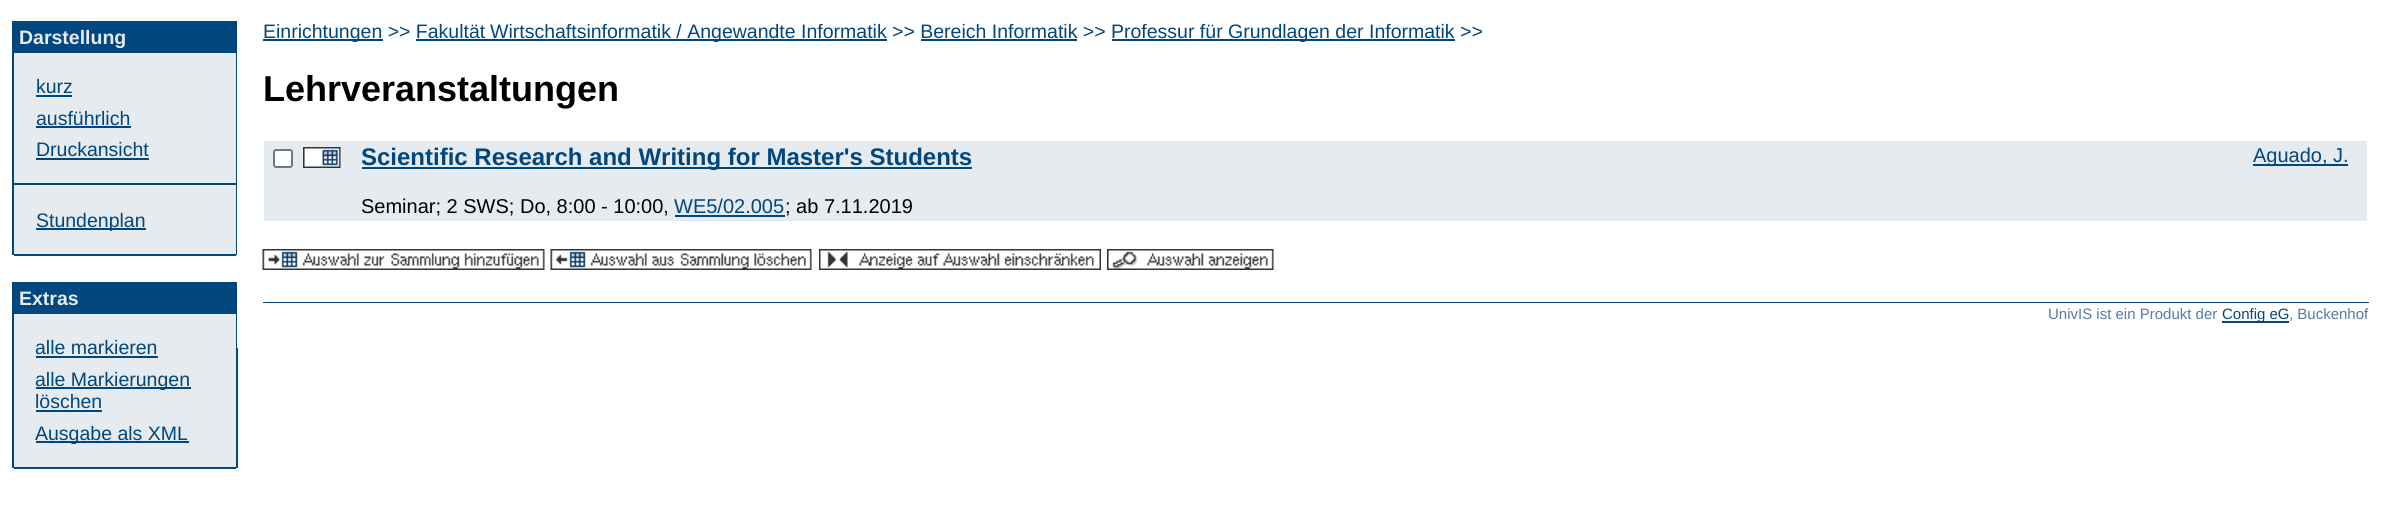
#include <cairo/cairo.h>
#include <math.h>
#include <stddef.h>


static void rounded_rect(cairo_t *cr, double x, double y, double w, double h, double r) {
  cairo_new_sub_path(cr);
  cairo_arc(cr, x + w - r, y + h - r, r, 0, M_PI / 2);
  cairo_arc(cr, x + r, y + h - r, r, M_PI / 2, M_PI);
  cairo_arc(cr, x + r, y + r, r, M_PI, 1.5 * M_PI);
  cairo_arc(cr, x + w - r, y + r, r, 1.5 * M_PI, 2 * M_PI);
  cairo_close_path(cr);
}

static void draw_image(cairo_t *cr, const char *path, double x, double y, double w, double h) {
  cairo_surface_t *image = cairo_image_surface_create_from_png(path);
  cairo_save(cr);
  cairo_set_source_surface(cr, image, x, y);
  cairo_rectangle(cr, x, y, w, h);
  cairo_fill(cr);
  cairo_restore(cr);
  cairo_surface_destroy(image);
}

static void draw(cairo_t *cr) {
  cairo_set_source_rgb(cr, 1, 1, 1);
  cairo_paint(cr);
  cairo_set_source_rgb(cr, 0, 70 / 255.0, 127 / 255.0);
  cairo_rectangle(cr, 12, 21, 2, 234);
  cairo_fill(cr);
  cairo_rectangle(cr, 14, 21, 222, 32);
  cairo_fill(cr);
  cairo_rectangle(cr, 236, 21, 1, 234);
  cairo_fill(cr);
  cairo_set_source_rgb(cr, 229 / 255.0, 235 / 255.0, 239 / 255.0);
  cairo_rectangle(cr, 14, 53, 222, 130);
  cairo_fill(cr);
  cairo_set_source_rgb(cr, 0, 70 / 255.0, 127 / 255.0);
  cairo_rectangle(cr, 36, 95, 36, 2);
  cairo_fill(cr);
  cairo_rectangle(cr, 36, 126, 95, 2);
  cairo_fill(cr);
  cairo_rectangle(cr, 36, 158, 113, 2);
  cairo_fill(cr);
  cairo_rectangle(cr, 14, 183, 222, 2);
  cairo_fill(cr);
  cairo_set_source_rgb(cr, 229 / 255.0, 235 / 255.0, 239 / 255.0);
  cairo_rectangle(cr, 14, 185, 222, 1);
  cairo_fill(cr);
  cairo_rectangle(cr, 14, 186, 222, 68);
  cairo_fill(cr);
  cairo_set_source_rgb(cr, 0, 70 / 255.0, 127 / 255.0);
  cairo_rectangle(cr, 36, 228, 110, 2);
  cairo_fill(cr);
  cairo_rectangle(cr, 14, 254, 222, 2);
  cairo_fill(cr);
  cairo_rectangle(cr, 12, 282, 2, 186);
  cairo_fill(cr);
  cairo_rectangle(cr, 14, 282, 222, 32);
  cairo_fill(cr);
  cairo_rectangle(cr, 236, 282, 2, 186);
  cairo_fill(cr);
  cairo_set_source_rgb(cr, 229 / 255.0, 235 / 255.0, 239 / 255.0);
  cairo_rectangle(cr, 14, 314, 222, 153);
  cairo_fill(cr);
  cairo_set_source_rgb(cr, 0, 70 / 255.0, 127 / 255.0);
  cairo_rectangle(cr, 36, 356, 122, 2);
  cairo_fill(cr);
  cairo_rectangle(cr, 36, 387, 155, 2);
  cairo_fill(cr);
  cairo_rectangle(cr, 36, 410, 66, 2);
  cairo_fill(cr);
  cairo_rectangle(cr, 36, 441, 153, 2);
  cairo_fill(cr);
  cairo_rectangle(cr, 14, 467, 222, 2);
  cairo_fill(cr);
  cairo_set_source_rgb(cr, 1, 1, 1);
  cairo_rectangle(cr, 237, 282, 1, 66);
  cairo_fill(cr);
  cairo_set_source_rgb(cr, 0, 70 / 255.0, 127 / 255.0);
  cairo_rectangle(cr, 263, 39, 120, 2);
  cairo_fill(cr);
  cairo_rectangle(cr, 416, 39, 471, 2);
  cairo_fill(cr);
  cairo_rectangle(cr, 921, 39, 156, 2);
  cairo_fill(cr);
  cairo_rectangle(cr, 1112, 39, 343, 2);
  cairo_fill(cr);
  cairo_set_source_rgb(cr, 229 / 255.0, 235 / 255.0, 239 / 255.0);
  cairo_rectangle(cr, 264, 141, 2103, 80);
  cairo_fill(cr);
  cairo_set_source_rgb(cr, 1, 1, 1);
  rounded_rect(cr, 274, 150, 18, 17, 2);
  cairo_fill_preserve(cr);
  cairo_set_source_rgb(cr, 118 / 255.0, 118 / 255.0, 118 / 255.0);
  cairo_stroke(cr);
  draw_image(cr, "images/1.png", 303, 147, 38, 21);
  cairo_set_source_rgb(cr, 0, 70 / 255.0, 127 / 255.0);
  cairo_rectangle(cr, 362, 167, 610, 2);
  cairo_fill(cr);
  cairo_rectangle(cr, 675, 215, 110, 2);
  cairo_fill(cr);
  cairo_rectangle(cr, 2253, 164, 95, 2);
  cairo_fill(cr);
  draw_image(cr, "images/2.png", 262, 249, 283, 21);
  draw_image(cr, "images/3.png", 550, 249, 262, 21);
  draw_image(cr, "images/4.png", 819, 249, 282, 21);
  draw_image(cr, "images/5.png", 1107, 249, 167, 21);
  cairo_rectangle(cr, 263, 302, 2106, 1);
  cairo_fill(cr);
  cairo_rectangle(cr, 2222, 321, 67, 2);
  cairo_fill(cr);
  cairo_select_font_face(cr, "Liberation Sans", CAIRO_FONT_SLANT_NORMAL, CAIRO_FONT_WEIGHT_BOLD);
  cairo_set_font_size(cr, 19.5);
  cairo_set_source_rgb(cr, 229 / 255.0, 235 / 255.0, 239 / 255.0);
  cairo_move_to(cr, 19, 44);
  cairo_show_text(cr, "Darstellung");
  cairo_select_font_face(cr, "Liberation Sans", CAIRO_FONT_SLANT_NORMAL, CAIRO_FONT_WEIGHT_NORMAL);
  cairo_set_source_rgb(cr, 0, 70 / 255.0, 127 / 255.0);
  cairo_move_to(cr, 36, 93);
  cairo_show_text(cr, "kurz");
  cairo_move_to(cr, 36, 125);
  cairo_show_text(cr, "ausführlich");
  cairo_move_to(cr, 36, 156);
  cairo_show_text(cr, "Druckansicht");
  cairo_move_to(cr, 36, 227);
  cairo_show_text(cr, "Stundenplan");
  cairo_select_font_face(cr, "Liberation Sans", CAIRO_FONT_SLANT_NORMAL, CAIRO_FONT_WEIGHT_BOLD);
  cairo_set_source_rgb(cr, 229 / 255.0, 235 / 255.0, 239 / 255.0);
  cairo_move_to(cr, 19, 305);
  cairo_show_text(cr, "Extras");
  cairo_select_font_face(cr, "Liberation Sans", CAIRO_FONT_SLANT_NORMAL, CAIRO_FONT_WEIGHT_NORMAL);
  cairo_set_source_rgb(cr, 0, 70 / 255.0, 127 / 255.0);
  cairo_move_to(cr, 35, 354);
  cairo_show_text(cr, "alle markieren");
  cairo_move_to(cr, 35, 386);
  cairo_show_text(cr, "alle Markierungen");
  cairo_move_to(cr, 35, 408);
  cairo_show_text(cr, "löschen");
  cairo_move_to(cr, 35, 440);
  cairo_show_text(cr, "Ausgabe als XML");
  cairo_move_to(cr, 263, 38);
  cairo_show_text(cr, "Einrichtungen >> Fakultät");
  cairo_move_to(cr, 490, 38);
  cairo_show_text(cr, "Wirtschaftsinformatik / Angewandte Informatik >> Bereich Informatik >>");
  cairo_move_to(cr, 1111, 38);
  cairo_show_text(cr, "Professur für Grundlagen der Informatik >>");
  cairo_select_font_face(cr, "Liberation Sans", CAIRO_FONT_SLANT_NORMAL, CAIRO_FONT_WEIGHT_BOLD);
  cairo_set_font_size(cr, 36);
  cairo_set_source_rgb(cr, 0, 0, 0);
  cairo_move_to(cr, 263, 101);
  cairo_show_text(cr, "Lehrveranstaltungen");
  cairo_set_font_size(cr, 24);
  cairo_set_source_rgb(cr, 0, 70 / 255.0, 127 / 255.0);
  cairo_move_to(cr, 361, 165);
  cairo_show_text(cr, "Scientific Research and Writing for Master's Students");
  cairo_select_font_face(cr, "Liberation Sans", CAIRO_FONT_SLANT_NORMAL, CAIRO_FONT_WEIGHT_NORMAL);
  cairo_set_font_size(cr, 20);
  cairo_set_source_rgb(cr, 0, 0, 0);
  cairo_move_to(cr, 361, 213);
  cairo_show_text(cr, "Seminar; 2 SWS; Do, 8:00 - 10:00,");
  cairo_set_source_rgb(cr, 0, 70 / 255.0, 127 / 255.0);
  cairo_move_to(cr, 674, 213);
  cairo_show_text(cr, "WE5/02.005");
  cairo_set_source_rgb(cr, 0, 0, 0);
  cairo_move_to(cr, 785, 213);
  cairo_show_text(cr, "; ab 7.11.2019");
  cairo_set_source_rgb(cr, 0, 70 / 255.0, 127 / 255.0);
  cairo_move_to(cr, 2253, 162);
  cairo_show_text(cr, "Aguado, J.");
  cairo_set_font_size(cr, 15);
  cairo_set_source_rgb(cr, 85 / 255.0, 122 / 255.0, 169 / 255.0);
  cairo_move_to(cr, 2048, 319);
  cairo_show_text(cr, "UnivIS ist ein Produkt der");
  cairo_set_source_rgb(cr, 0, 70 / 255.0, 127 / 255.0);
  cairo_move_to(cr, 2222, 319);
  cairo_show_text(cr, "Config eG");
  cairo_set_source_rgb(cr, 85 / 255.0, 122 / 255.0, 169 / 255.0);
  cairo_move_to(cr, 2289, 319);
  cairo_show_text(cr, ", Buckenhof");
}

int main(void) {
  cairo_surface_t *surface = cairo_image_surface_create(CAIRO_FORMAT_RGB24, 2406, 519);
  cairo_t *cr = cairo_create(surface);
  cairo_font_options_t *options = cairo_font_options_create();
  cairo_font_options_set_hint_metrics(options, CAIRO_HINT_METRICS_OFF);
  cairo_font_options_set_hint_style(options, CAIRO_HINT_STYLE_NONE);
  cairo_set_font_options(cr, options);
  cairo_set_miter_limit(cr, 4);
  draw(cr);
  cairo_surface_write_to_png(surface, "out.png");
  cairo_font_options_destroy(options);
  cairo_destroy(cr);
  cairo_surface_destroy(surface);
  return 0;
}
